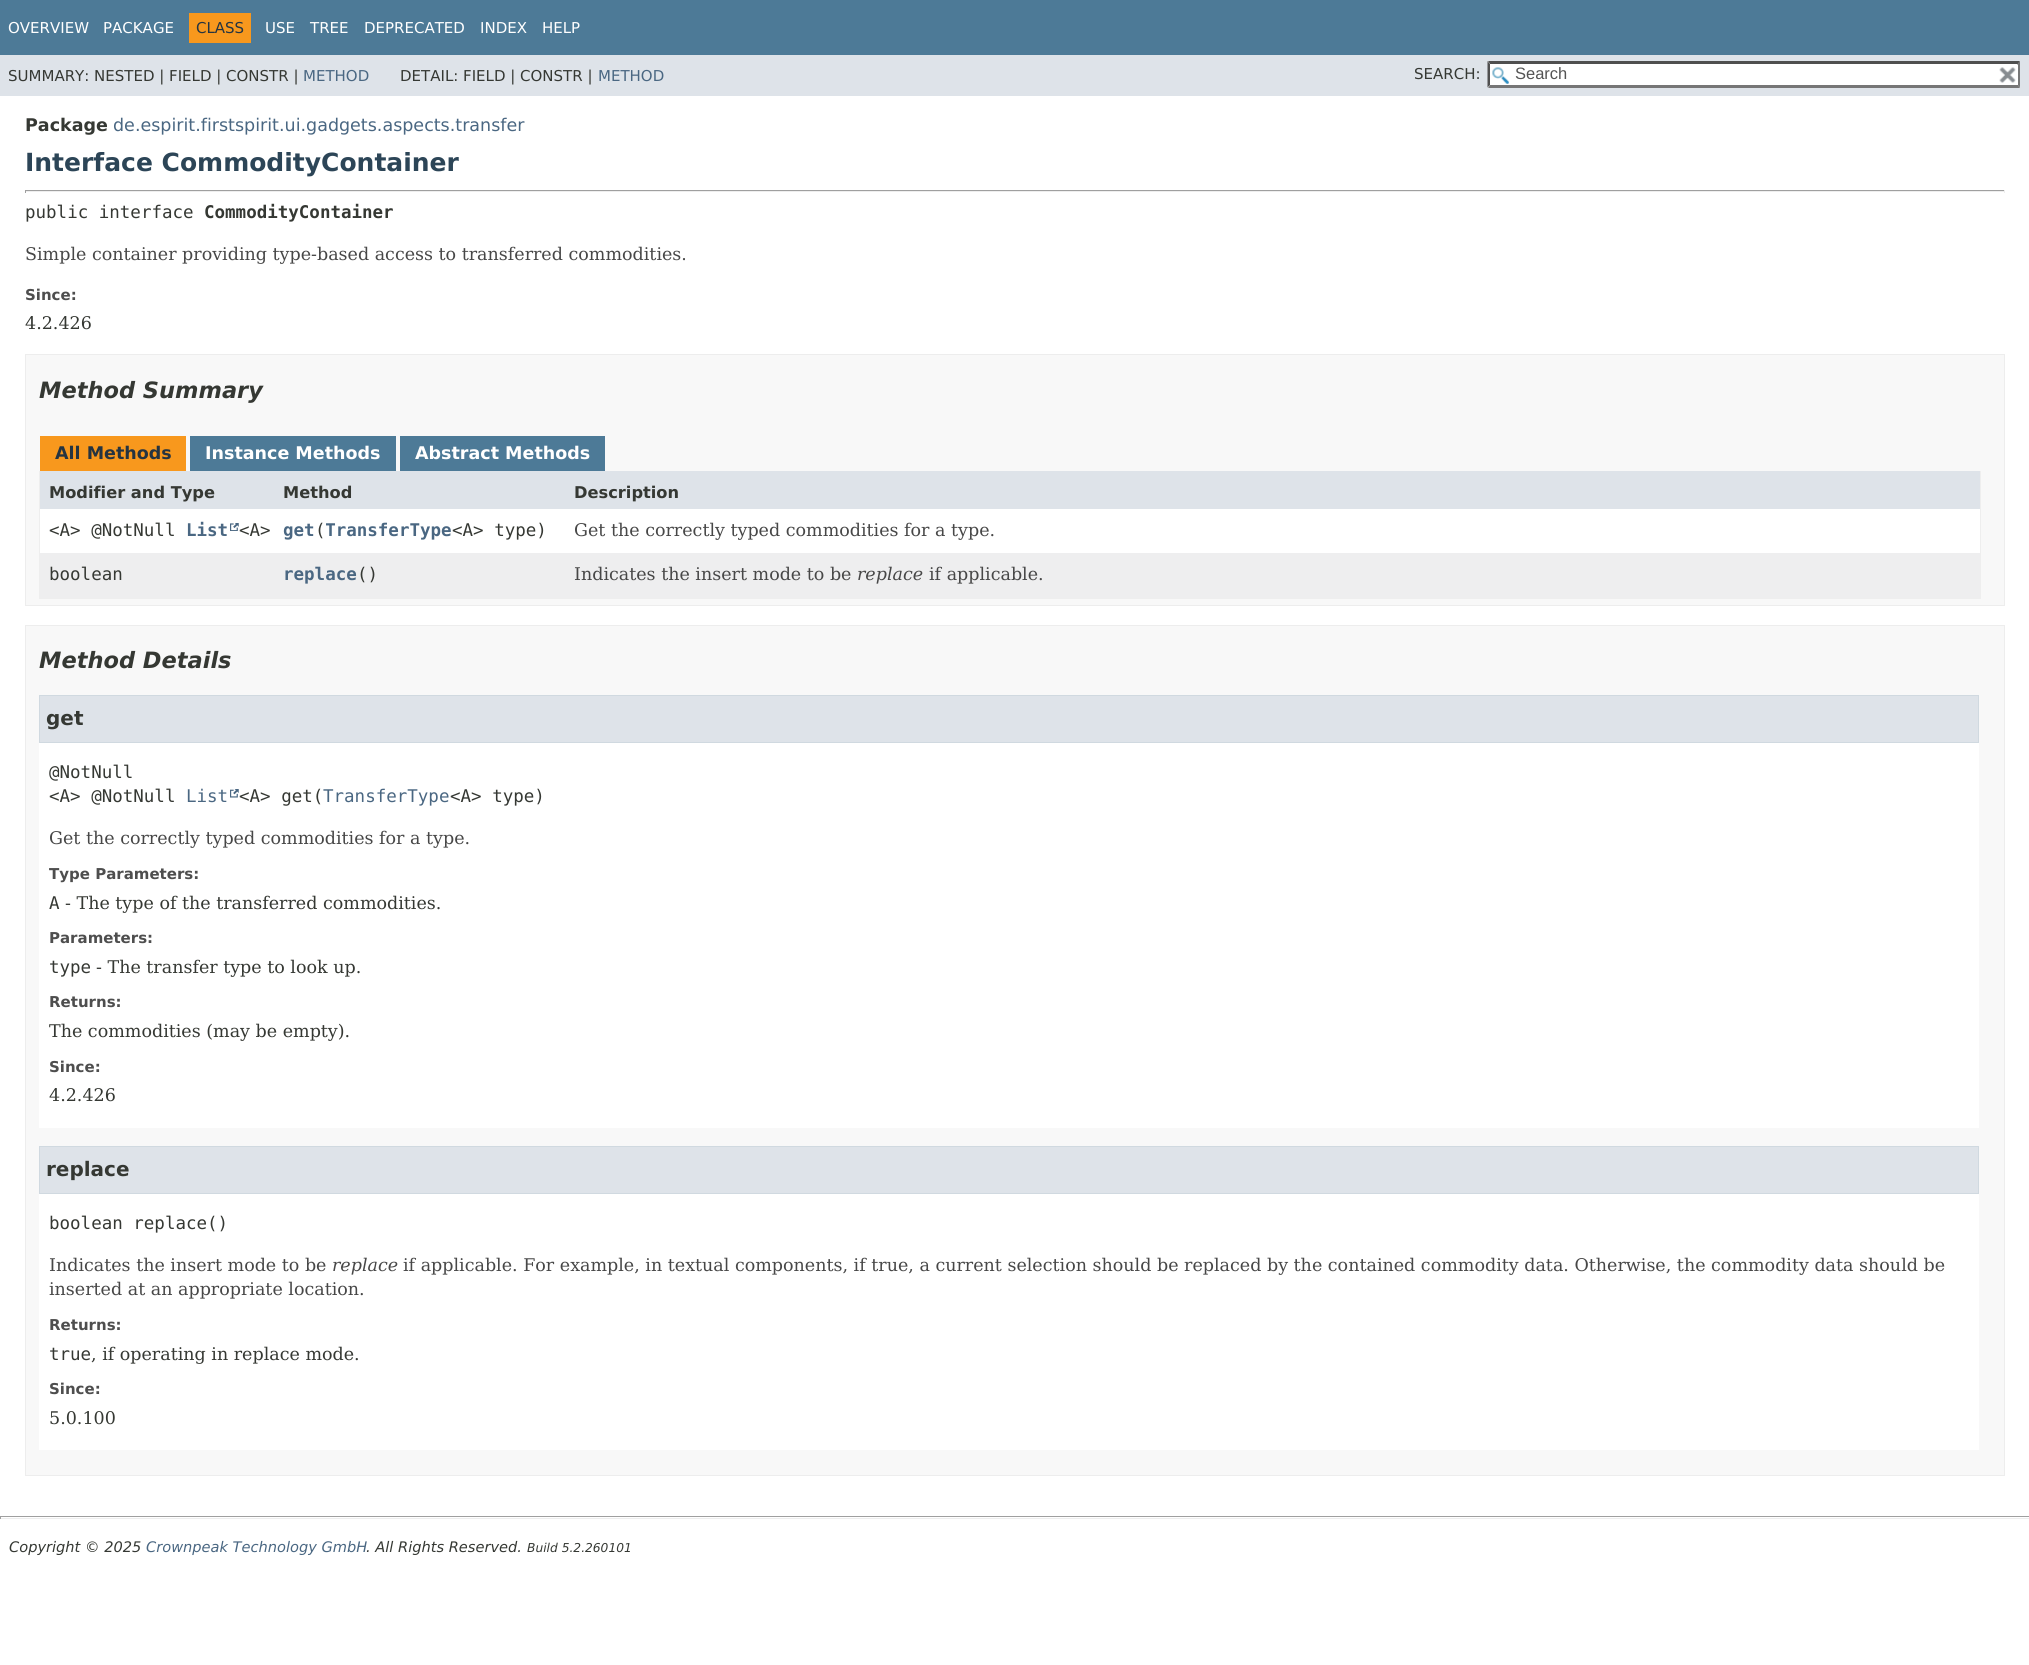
#include <cairo/cairo.h>
#include <math.h>
#include <stddef.h>


static void draw_image(cairo_t *cr, const char *path, double x, double y, double w, double h) {
  cairo_surface_t *image = cairo_image_surface_create_from_png(path);
  cairo_save(cr);
  cairo_set_source_surface(cr, image, x, y);
  cairo_rectangle(cr, x, y, w, h);
  cairo_fill(cr);
  cairo_restore(cr);
  cairo_surface_destroy(image);
}

static void draw(cairo_t *cr) {
  cairo_set_source_rgb(cr, 1, 1, 1);
  cairo_paint(cr);
  cairo_set_source_rgb(cr, 77 / 255.0, 122 / 255.0, 151 / 255.0);
  cairo_rectangle(cr, 0, 0, 2029, 55);
  cairo_fill(cr);
  cairo_set_source_rgb(cr, 248 / 255.0, 152 / 255.0, 29 / 255.0);
  cairo_rectangle(cr, 189, 13, 62, 30);
  cairo_fill(cr);
  cairo_set_source_rgb(cr, 222 / 255.0, 227 / 255.0, 233 / 255.0);
  cairo_rectangle(cr, 0, 55, 2029, 41);
  cairo_fill(cr);
  cairo_set_source_rgb(cr, 1, 1, 1);
  cairo_rectangle(cr, 1488, 61, 532, 27);
  cairo_fill(cr);
  draw_image(cr, "images/1.png", 1492, 67, 17, 17);
  cairo_set_source_rgb(cr, 79 / 255.0, 79 / 255.0, 79 / 255.0);
  cairo_new_path(cr);
  cairo_move_to(cr, 1488, 61);
  cairo_line_to(cr, 2020, 61);
  cairo_line_to(cr, 2018, 64);
  cairo_line_to(cr, 1490, 64);
  cairo_close_path(cr);
  cairo_fill(cr);
  cairo_set_source_rgb(cr, 118 / 255.0, 118 / 255.0, 118 / 255.0);
  cairo_new_path(cr);
  cairo_move_to(cr, 2020, 61);
  cairo_line_to(cr, 2020, 87.5);
  cairo_line_to(cr, 2017.5, 85);
  cairo_line_to(cr, 2017.5, 64);
  cairo_close_path(cr);
  cairo_fill(cr);
  cairo_new_path(cr);
  cairo_move_to(cr, 2020, 88);
  cairo_line_to(cr, 1488, 88);
  cairo_line_to(cr, 1490, 85);
  cairo_line_to(cr, 2018, 85);
  cairo_close_path(cr);
  cairo_fill(cr);
  cairo_set_source_rgb(cr, 79 / 255.0, 79 / 255.0, 79 / 255.0);
  cairo_new_path(cr);
  cairo_move_to(cr, 1487.5, 87.5);
  cairo_line_to(cr, 1487.5, 61);
  cairo_line_to(cr, 1490, 64);
  cairo_line_to(cr, 1490, 85);
  cairo_close_path(cr);
  cairo_fill(cr);
  cairo_set_source_rgb(cr, 1, 1, 1);
  cairo_rectangle(cr, 2017, 65, 1, 20);
  cairo_fill(cr);
  draw_image(cr, "images/2.png", 1999, 67, 17, 16);
  cairo_set_source_rgb(cr, 159 / 255.0, 159 / 255.0, 159 / 255.0);
  cairo_rectangle(cr, 25, 190, 1980, 1);
  cairo_fill(cr);
  cairo_set_source_rgb(cr, 238 / 255.0, 238 / 255.0, 238 / 255.0);
  cairo_rectangle(cr, 2004, 190, 1, 3);
  cairo_fill(cr);
  cairo_rectangle(cr, 25, 191, 1980, 1);
  cairo_fill(cr);
  cairo_set_source_rgb(cr, 159 / 255.0, 159 / 255.0, 159 / 255.0);
  cairo_rectangle(cr, 25, 190, 1, 3);
  cairo_fill(cr);
  cairo_set_source_rgb(cr, 248 / 255.0, 248 / 255.0, 248 / 255.0);
  cairo_rectangle(cr, 25.5, 354.5, 1979, 251);
  cairo_fill_preserve(cr);
  cairo_set_source_rgb(cr, 237 / 255.0, 237 / 255.0, 237 / 255.0);
  cairo_set_line_width(cr, 1);
  cairo_stroke(cr);
  cairo_set_source_rgb(cr, 248 / 255.0, 152 / 255.0, 29 / 255.0);
  cairo_rectangle(cr, 40, 436, 146, 35);
  cairo_fill(cr);
  cairo_set_source_rgb(cr, 77 / 255.0, 122 / 255.0, 151 / 255.0);
  cairo_rectangle(cr, 190, 436, 206, 35);
  cairo_fill(cr);
  cairo_rectangle(cr, 400, 436, 205, 35);
  cairo_fill(cr);
  cairo_set_source_rgb(cr, 238 / 255.0, 238 / 255.0, 238 / 255.0);
  cairo_rectangle(cr, 1980, 471, 1, 128);
  cairo_fill(cr);
  cairo_rectangle(cr, 39, 598, 1942, 1);
  cairo_fill(cr);
  cairo_rectangle(cr, 39, 471, 1, 128);
  cairo_fill(cr);
  cairo_set_source_rgb(cr, 222 / 255.0, 227 / 255.0, 233 / 255.0);
  cairo_rectangle(cr, 40, 471, 525, 38);
  cairo_fill(cr);
  cairo_rectangle(cr, 565, 471, 1415, 38);
  cairo_fill(cr);
  cairo_set_source_rgb(cr, 1, 1, 1);
  cairo_rectangle(cr, 40, 509, 525, 44);
  cairo_fill(cr);
  draw_image(cr, "images/3.png", 230, 523, 9, 8);
  cairo_rectangle(cr, 565, 509, 1415, 44);
  cairo_fill(cr);
  cairo_set_source_rgb(cr, 238 / 255.0, 238 / 255.0, 239 / 255.0);
  cairo_rectangle(cr, 40, 553, 525, 45);
  cairo_fill(cr);
  cairo_rectangle(cr, 565, 553, 1415, 45);
  cairo_fill(cr);
  cairo_set_source_rgb(cr, 248 / 255.0, 248 / 255.0, 248 / 255.0);
  cairo_rectangle(cr, 25.5, 625.5, 1979, 850);
  cairo_fill_preserve(cr);
  cairo_set_source_rgb(cr, 237 / 255.0, 237 / 255.0, 237 / 255.0);
  cairo_stroke(cr);
  cairo_set_source_rgb(cr, 1, 1, 1);
  cairo_rectangle(cr, 39, 743, 1940, 385);
  cairo_fill(cr);
  cairo_set_source_rgb(cr, 222 / 255.0, 227 / 255.0, 233 / 255.0);
  cairo_rectangle(cr, 39.5, 695.5, 1939, 47);
  cairo_fill_preserve(cr);
  cairo_set_source_rgb(cr, 208 / 255.0, 217 / 255.0, 224 / 255.0);
  cairo_stroke(cr);
  draw_image(cr, "images/4.png", 230, 789, 9, 9);
  cairo_set_source_rgb(cr, 1, 1, 1);
  cairo_rectangle(cr, 39, 1194, 1940, 256);
  cairo_fill(cr);
  cairo_set_source_rgb(cr, 222 / 255.0, 227 / 255.0, 233 / 255.0);
  cairo_rectangle(cr, 39.5, 1146.5, 1939, 47);
  cairo_fill_preserve(cr);
  cairo_set_source_rgb(cr, 208 / 255.0, 217 / 255.0, 224 / 255.0);
  cairo_stroke(cr);
  cairo_set_source_rgb(cr, 159 / 255.0, 159 / 255.0, 159 / 255.0);
  cairo_rectangle(cr, 0, 1516, 2029, 1);
  cairo_fill(cr);
  cairo_set_source_rgb(cr, 238 / 255.0, 238 / 255.0, 238 / 255.0);
  cairo_rectangle(cr, 0, 1518, 2029, 1);
  cairo_fill(cr);
  cairo_set_source_rgb(cr, 159 / 255.0, 159 / 255.0, 159 / 255.0);
  cairo_rectangle(cr, 0, 1516, 1, 3);
  cairo_fill(cr);
  cairo_select_font_face(cr, "DejaVu Sans", CAIRO_FONT_SLANT_NORMAL, CAIRO_FONT_WEIGHT_NORMAL);
  cairo_set_font_size(cr, 15);
  cairo_set_source_rgb(cr, 1, 1, 1);
  cairo_move_to(cr, 8, 33);
  cairo_show_text(cr, "OVERVIEW");
  cairo_move_to(cr, 103, 33);
  cairo_show_text(cr, "PACKAGE");
  cairo_set_source_rgb(cr, 37 / 255.0, 52 / 255.0, 65 / 255.0);
  cairo_move_to(cr, 196, 33);
  cairo_show_text(cr, "CLASS");
  cairo_set_source_rgb(cr, 1, 1, 1);
  cairo_move_to(cr, 265, 33);
  cairo_show_text(cr, "USE");
  cairo_move_to(cr, 310, 33);
  cairo_show_text(cr, "TREE");
  cairo_move_to(cr, 364, 33);
  cairo_show_text(cr, "DEPRECATED");
  cairo_move_to(cr, 480, 33);
  cairo_show_text(cr, "INDEX");
  cairo_move_to(cr, 542, 33);
  cairo_show_text(cr, "HELP");
  cairo_set_source_rgb(cr, 53 / 255.0, 56 / 255.0, 51 / 255.0);
  cairo_move_to(cr, 8, 81);
  cairo_show_text(cr, "SUMMARY: NESTED | FIELD | CONSTR |");
  cairo_set_source_rgb(cr, 74 / 255.0, 103 / 255.0, 130 / 255.0);
  cairo_move_to(cr, 303, 81);
  cairo_show_text(cr, "METHOD");
  cairo_set_source_rgb(cr, 53 / 255.0, 56 / 255.0, 51 / 255.0);
  cairo_move_to(cr, 400, 81);
  cairo_show_text(cr, "DETAIL: FIELD | CONSTR |");
  cairo_set_source_rgb(cr, 74 / 255.0, 103 / 255.0, 130 / 255.0);
  cairo_move_to(cr, 598, 81);
  cairo_show_text(cr, "METHOD");
  cairo_set_source_rgb(cr, 53 / 255.0, 56 / 255.0, 51 / 255.0);
  cairo_move_to(cr, 1414, 79);
  cairo_show_text(cr, "SEARCH:");
  cairo_select_font_face(cr, "Liberation Sans", CAIRO_FONT_SLANT_NORMAL, CAIRO_FONT_WEIGHT_NORMAL);
  cairo_set_font_size(cr, 16.5);
  cairo_set_source_rgb(cr, 84 / 255.0, 84 / 255.0, 84 / 255.0);
  cairo_move_to(cr, 1515, 79);
  cairo_show_text(cr, "Search");
  cairo_select_font_face(cr, "DejaVu Sans", CAIRO_FONT_SLANT_NORMAL, CAIRO_FONT_WEIGHT_BOLD);
  cairo_set_font_size(cr, 17.5);
  cairo_set_source_rgb(cr, 53 / 255.0, 56 / 255.0, 51 / 255.0);
  cairo_move_to(cr, 25, 131);
  cairo_show_text(cr, "Package");
  cairo_select_font_face(cr, "DejaVu Sans", CAIRO_FONT_SLANT_NORMAL, CAIRO_FONT_WEIGHT_NORMAL);
  cairo_set_source_rgb(cr, 74 / 255.0, 103 / 255.0, 130 / 255.0);
  cairo_move_to(cr, 113, 131);
  cairo_show_text(cr, "de.espirit.firstspirit.ui.gadgets.aspects.transfer");
  cairo_select_font_face(cr, "DejaVu Sans", CAIRO_FONT_SLANT_NORMAL, CAIRO_FONT_WEIGHT_BOLD);
  cairo_set_font_size(cr, 25);
  cairo_set_source_rgb(cr, 44 / 255.0, 69 / 255.0, 87 / 255.0);
  cairo_move_to(cr, 25, 171);
  cairo_show_text(cr, "Interface CommodityContainer");
  cairo_select_font_face(cr, "DejaVu Sans Mono", CAIRO_FONT_SLANT_NORMAL, CAIRO_FONT_WEIGHT_NORMAL);
  cairo_set_font_size(cr, 17.5);
  cairo_set_source_rgb(cr, 53 / 255.0, 56 / 255.0, 51 / 255.0);
  cairo_move_to(cr, 25, 218);
  cairo_show_text(cr, "public interface");
  cairo_select_font_face(cr, "DejaVu Sans Mono", CAIRO_FONT_SLANT_NORMAL, CAIRO_FONT_WEIGHT_BOLD);
  cairo_move_to(cr, 204, 218);
  cairo_show_text(cr, "CommodityContainer");
  cairo_select_font_face(cr, "DejaVu Serif", CAIRO_FONT_SLANT_NORMAL, CAIRO_FONT_WEIGHT_NORMAL);
  cairo_set_source_rgb(cr, 71 / 255.0, 71 / 255.0, 71 / 255.0);
  cairo_move_to(cr, 25, 260);
  cairo_show_text(cr, "Simple container providing type-based access to transferred commodities.");
  cairo_select_font_face(cr, "DejaVu Sans", CAIRO_FONT_SLANT_NORMAL, CAIRO_FONT_WEIGHT_BOLD);
  cairo_set_font_size(cr, 15);
  cairo_set_source_rgb(cr, 78 / 255.0, 78 / 255.0, 78 / 255.0);
  cairo_move_to(cr, 25, 300);
  cairo_show_text(cr, "Since:");
  cairo_select_font_face(cr, "DejaVu Serif", CAIRO_FONT_SLANT_NORMAL, CAIRO_FONT_WEIGHT_NORMAL);
  cairo_set_font_size(cr, 17.5);
  cairo_set_source_rgb(cr, 53 / 255.0, 56 / 255.0, 51 / 255.0);
  cairo_move_to(cr, 25, 329);
  cairo_show_text(cr, "4.2.426");
  cairo_select_font_face(cr, "DejaVu Sans", CAIRO_FONT_SLANT_ITALIC, CAIRO_FONT_WEIGHT_BOLD);
  cairo_set_font_size(cr, 22.5);
  cairo_move_to(cr, 39, 398);
  cairo_show_text(cr, "Method Summary");
  cairo_select_font_face(cr, "DejaVu Sans", CAIRO_FONT_SLANT_NORMAL, CAIRO_FONT_WEIGHT_BOLD);
  cairo_set_font_size(cr, 17.5);
  cairo_set_source_rgb(cr, 37 / 255.0, 52 / 255.0, 65 / 255.0);
  cairo_move_to(cr, 55, 459);
  cairo_show_text(cr, "All Methods");
  cairo_set_source_rgb(cr, 1, 1, 1);
  cairo_move_to(cr, 205, 459);
  cairo_show_text(cr, "Instance Methods");
  cairo_move_to(cr, 415, 459);
  cairo_show_text(cr, "Abstract Methods");
  cairo_set_font_size(cr, 16.25);
  cairo_set_source_rgb(cr, 53 / 255.0, 56 / 255.0, 51 / 255.0);
  cairo_move_to(cr, 49, 498);
  cairo_show_text(cr, "Modifier and Type");
  cairo_move_to(cr, 283, 498);
  cairo_show_text(cr, "Method");
  cairo_move_to(cr, 574, 498);
  cairo_show_text(cr, "Description");
  cairo_select_font_face(cr, "DejaVu Sans Mono", CAIRO_FONT_SLANT_NORMAL, CAIRO_FONT_WEIGHT_NORMAL);
  cairo_set_font_size(cr, 17.5);
  cairo_move_to(cr, 49, 536);
  cairo_show_text(cr, "<A> @NotNull");
  cairo_select_font_face(cr, "DejaVu Sans Mono", CAIRO_FONT_SLANT_NORMAL, CAIRO_FONT_WEIGHT_BOLD);
  cairo_set_source_rgb(cr, 74 / 255.0, 103 / 255.0, 130 / 255.0);
  cairo_move_to(cr, 186, 536);
  cairo_show_text(cr, "List");
  cairo_select_font_face(cr, "DejaVu Sans Mono", CAIRO_FONT_SLANT_NORMAL, CAIRO_FONT_WEIGHT_NORMAL);
  cairo_set_source_rgb(cr, 53 / 255.0, 56 / 255.0, 51 / 255.0);
  cairo_move_to(cr, 239, 536);
  cairo_show_text(cr, "<A>");
  cairo_select_font_face(cr, "DejaVu Sans Mono", CAIRO_FONT_SLANT_NORMAL, CAIRO_FONT_WEIGHT_BOLD);
  cairo_set_source_rgb(cr, 74 / 255.0, 103 / 255.0, 130 / 255.0);
  cairo_move_to(cr, 283, 536);
  cairo_show_text(cr, "get TransferType");
  cairo_select_font_face(cr, "DejaVu Sans Mono", CAIRO_FONT_SLANT_NORMAL, CAIRO_FONT_WEIGHT_NORMAL);
  cairo_set_source_rgb(cr, 53 / 255.0, 56 / 255.0, 51 / 255.0);
  cairo_move_to(cr, 315, 536);
  cairo_show_text(cr, "(");
  cairo_move_to(cr, 452, 536);
  cairo_show_text(cr, "<A> type)");
  cairo_select_font_face(cr, "DejaVu Serif", CAIRO_FONT_SLANT_NORMAL, CAIRO_FONT_WEIGHT_NORMAL);
  cairo_set_source_rgb(cr, 71 / 255.0, 71 / 255.0, 71 / 255.0);
  cairo_move_to(cr, 574, 536);
  cairo_show_text(cr, "Get the correctly typed commodities for a type.");
  cairo_select_font_face(cr, "DejaVu Sans Mono", CAIRO_FONT_SLANT_NORMAL, CAIRO_FONT_WEIGHT_NORMAL);
  cairo_set_source_rgb(cr, 53 / 255.0, 56 / 255.0, 51 / 255.0);
  cairo_move_to(cr, 49, 580);
  cairo_show_text(cr, "boolean");
  cairo_select_font_face(cr, "DejaVu Sans Mono", CAIRO_FONT_SLANT_NORMAL, CAIRO_FONT_WEIGHT_BOLD);
  cairo_set_source_rgb(cr, 74 / 255.0, 103 / 255.0, 130 / 255.0);
  cairo_move_to(cr, 283, 580);
  cairo_show_text(cr, "replace");
  cairo_select_font_face(cr, "DejaVu Sans Mono", CAIRO_FONT_SLANT_NORMAL, CAIRO_FONT_WEIGHT_NORMAL);
  cairo_set_source_rgb(cr, 53 / 255.0, 56 / 255.0, 51 / 255.0);
  cairo_move_to(cr, 357, 580);
  cairo_show_text(cr, "()");
  cairo_select_font_face(cr, "DejaVu Serif", CAIRO_FONT_SLANT_NORMAL, CAIRO_FONT_WEIGHT_NORMAL);
  cairo_set_source_rgb(cr, 71 / 255.0, 71 / 255.0, 71 / 255.0);
  cairo_move_to(cr, 574, 580);
  cairo_show_text(cr, "Indicates the insert mode to be");
  cairo_select_font_face(cr, "DejaVu Serif", CAIRO_FONT_SLANT_ITALIC, CAIRO_FONT_WEIGHT_NORMAL);
  cairo_move_to(cr, 857, 580);
  cairo_show_text(cr, "replace");
  cairo_select_font_face(cr, "DejaVu Serif", CAIRO_FONT_SLANT_NORMAL, CAIRO_FONT_WEIGHT_NORMAL);
  cairo_move_to(cr, 929, 580);
  cairo_show_text(cr, "if applicable.");
  cairo_select_font_face(cr, "DejaVu Sans", CAIRO_FONT_SLANT_ITALIC, CAIRO_FONT_WEIGHT_BOLD);
  cairo_set_font_size(cr, 22.5);
  cairo_set_source_rgb(cr, 53 / 255.0, 56 / 255.0, 51 / 255.0);
  cairo_move_to(cr, 39, 668);
  cairo_show_text(cr, "Method Details");
  cairo_select_font_face(cr, "DejaVu Sans", CAIRO_FONT_SLANT_NORMAL, CAIRO_FONT_WEIGHT_BOLD);
  cairo_set_font_size(cr, 20);
  cairo_move_to(cr, 46, 725);
  cairo_show_text(cr, "get");
  cairo_select_font_face(cr, "DejaVu Sans Mono", CAIRO_FONT_SLANT_NORMAL, CAIRO_FONT_WEIGHT_NORMAL);
  cairo_set_font_size(cr, 17.5);
  cairo_move_to(cr, 49, 778);
  cairo_show_text(cr, "@NotNull");
  cairo_move_to(cr, 49, 802);
  cairo_show_text(cr, "<A> @NotNull");
  cairo_set_source_rgb(cr, 74 / 255.0, 103 / 255.0, 130 / 255.0);
  cairo_move_to(cr, 186, 802);
  cairo_show_text(cr, "List");
  cairo_set_source_rgb(cr, 53 / 255.0, 56 / 255.0, 51 / 255.0);
  cairo_move_to(cr, 239, 802);
  cairo_show_text(cr, "<A> get(");
  cairo_set_source_rgb(cr, 74 / 255.0, 103 / 255.0, 130 / 255.0);
  cairo_move_to(cr, 323, 802);
  cairo_show_text(cr, "TransferType");
  cairo_set_source_rgb(cr, 53 / 255.0, 56 / 255.0, 51 / 255.0);
  cairo_move_to(cr, 450, 802);
  cairo_show_text(cr, "<A> type)");
  cairo_select_font_face(cr, "DejaVu Serif", CAIRO_FONT_SLANT_NORMAL, CAIRO_FONT_WEIGHT_NORMAL);
  cairo_set_source_rgb(cr, 71 / 255.0, 71 / 255.0, 71 / 255.0);
  cairo_move_to(cr, 49, 844);
  cairo_show_text(cr, "Get the correctly typed commodities for a type.");
  cairo_select_font_face(cr, "DejaVu Sans", CAIRO_FONT_SLANT_NORMAL, CAIRO_FONT_WEIGHT_BOLD);
  cairo_set_font_size(cr, 15);
  cairo_set_source_rgb(cr, 78 / 255.0, 78 / 255.0, 78 / 255.0);
  cairo_move_to(cr, 49, 879);
  cairo_show_text(cr, "Type Parameters:");
  cairo_select_font_face(cr, "DejaVu Sans Mono", CAIRO_FONT_SLANT_NORMAL, CAIRO_FONT_WEIGHT_NORMAL);
  cairo_set_font_size(cr, 17.5);
  cairo_set_source_rgb(cr, 53 / 255.0, 56 / 255.0, 51 / 255.0);
  cairo_move_to(cr, 49, 909);
  cairo_show_text(cr, "A");
  cairo_select_font_face(cr, "DejaVu Serif", CAIRO_FONT_SLANT_NORMAL, CAIRO_FONT_WEIGHT_NORMAL);
  cairo_move_to(cr, 65, 909);
  cairo_show_text(cr, "- The type of the transferred commodities.");
  cairo_select_font_face(cr, "DejaVu Sans", CAIRO_FONT_SLANT_NORMAL, CAIRO_FONT_WEIGHT_BOLD);
  cairo_set_font_size(cr, 15);
  cairo_set_source_rgb(cr, 78 / 255.0, 78 / 255.0, 78 / 255.0);
  cairo_move_to(cr, 49, 943);
  cairo_show_text(cr, "Parameters:");
  cairo_select_font_face(cr, "DejaVu Sans Mono", CAIRO_FONT_SLANT_NORMAL, CAIRO_FONT_WEIGHT_NORMAL);
  cairo_set_font_size(cr, 17.5);
  cairo_set_source_rgb(cr, 53 / 255.0, 56 / 255.0, 51 / 255.0);
  cairo_move_to(cr, 49, 973);
  cairo_show_text(cr, "type");
  cairo_select_font_face(cr, "DejaVu Serif", CAIRO_FONT_SLANT_NORMAL, CAIRO_FONT_WEIGHT_NORMAL);
  cairo_move_to(cr, 96, 973);
  cairo_show_text(cr, "- The transfer type to look up.");
  cairo_select_font_face(cr, "DejaVu Sans", CAIRO_FONT_SLANT_NORMAL, CAIRO_FONT_WEIGHT_BOLD);
  cairo_set_font_size(cr, 15);
  cairo_set_source_rgb(cr, 78 / 255.0, 78 / 255.0, 78 / 255.0);
  cairo_move_to(cr, 49, 1007);
  cairo_show_text(cr, "Returns:");
  cairo_select_font_face(cr, "DejaVu Serif", CAIRO_FONT_SLANT_NORMAL, CAIRO_FONT_WEIGHT_NORMAL);
  cairo_set_font_size(cr, 17.5);
  cairo_set_source_rgb(cr, 53 / 255.0, 56 / 255.0, 51 / 255.0);
  cairo_move_to(cr, 49, 1037);
  cairo_show_text(cr, "The commodities (may be empty).");
  cairo_select_font_face(cr, "DejaVu Sans", CAIRO_FONT_SLANT_NORMAL, CAIRO_FONT_WEIGHT_BOLD);
  cairo_set_font_size(cr, 15);
  cairo_set_source_rgb(cr, 78 / 255.0, 78 / 255.0, 78 / 255.0);
  cairo_move_to(cr, 49, 1072);
  cairo_show_text(cr, "Since:");
  cairo_select_font_face(cr, "DejaVu Serif", CAIRO_FONT_SLANT_NORMAL, CAIRO_FONT_WEIGHT_NORMAL);
  cairo_set_font_size(cr, 17.5);
  cairo_set_source_rgb(cr, 53 / 255.0, 56 / 255.0, 51 / 255.0);
  cairo_move_to(cr, 49, 1101);
  cairo_show_text(cr, "4.2.426");
  cairo_select_font_face(cr, "DejaVu Sans", CAIRO_FONT_SLANT_NORMAL, CAIRO_FONT_WEIGHT_BOLD);
  cairo_set_font_size(cr, 20);
  cairo_move_to(cr, 46, 1176);
  cairo_show_text(cr, "replace");
  cairo_select_font_face(cr, "DejaVu Sans Mono", CAIRO_FONT_SLANT_NORMAL, CAIRO_FONT_WEIGHT_NORMAL);
  cairo_set_font_size(cr, 17.5);
  cairo_move_to(cr, 49, 1229);
  cairo_show_text(cr, "boolean replace()");
  cairo_select_font_face(cr, "DejaVu Serif", CAIRO_FONT_SLANT_NORMAL, CAIRO_FONT_WEIGHT_NORMAL);
  cairo_set_source_rgb(cr, 71 / 255.0, 71 / 255.0, 71 / 255.0);
  cairo_move_to(cr, 49, 1271);
  cairo_show_text(cr, "Indicates the insert mode to be");
  cairo_select_font_face(cr, "DejaVu Serif", CAIRO_FONT_SLANT_ITALIC, CAIRO_FONT_WEIGHT_NORMAL);
  cairo_move_to(cr, 332, 1271);
  cairo_show_text(cr, "replace");
  cairo_select_font_face(cr, "DejaVu Serif", CAIRO_FONT_SLANT_NORMAL, CAIRO_FONT_WEIGHT_NORMAL);
  cairo_move_to(cr, 403, 1271);
  cairo_show_text(cr, "if applicable. For example, in textual components, if true, a current selection should be replaced by the contained commodity data. Otherwise, the commodity data should be");
  cairo_move_to(cr, 49, 1295);
  cairo_show_text(cr, "inserted at an appropriate location.");
  cairo_select_font_face(cr, "DejaVu Sans", CAIRO_FONT_SLANT_NORMAL, CAIRO_FONT_WEIGHT_BOLD);
  cairo_set_font_size(cr, 15);
  cairo_set_source_rgb(cr, 78 / 255.0, 78 / 255.0, 78 / 255.0);
  cairo_move_to(cr, 49, 1330);
  cairo_show_text(cr, "Returns:");
  cairo_select_font_face(cr, "DejaVu Sans Mono", CAIRO_FONT_SLANT_NORMAL, CAIRO_FONT_WEIGHT_NORMAL);
  cairo_set_font_size(cr, 17.5);
  cairo_set_source_rgb(cr, 53 / 255.0, 56 / 255.0, 51 / 255.0);
  cairo_move_to(cr, 49, 1360);
  cairo_show_text(cr, "true");
  cairo_select_font_face(cr, "DejaVu Serif", CAIRO_FONT_SLANT_NORMAL, CAIRO_FONT_WEIGHT_NORMAL);
  cairo_move_to(cr, 91, 1360);
  cairo_show_text(cr, ", if operating in replace mode.");
  cairo_select_font_face(cr, "DejaVu Sans", CAIRO_FONT_SLANT_NORMAL, CAIRO_FONT_WEIGHT_BOLD);
  cairo_set_font_size(cr, 15);
  cairo_set_source_rgb(cr, 78 / 255.0, 78 / 255.0, 78 / 255.0);
  cairo_move_to(cr, 49, 1394);
  cairo_show_text(cr, "Since:");
  cairo_select_font_face(cr, "DejaVu Serif", CAIRO_FONT_SLANT_NORMAL, CAIRO_FONT_WEIGHT_NORMAL);
  cairo_set_font_size(cr, 17.5);
  cairo_set_source_rgb(cr, 53 / 255.0, 56 / 255.0, 51 / 255.0);
  cairo_move_to(cr, 49, 1424);
  cairo_show_text(cr, "5.0.100");
  cairo_select_font_face(cr, "DejaVu Sans", CAIRO_FONT_SLANT_ITALIC, CAIRO_FONT_WEIGHT_NORMAL);
  cairo_set_font_size(cr, 14.6);
  cairo_move_to(cr, 9, 1552);
  cairo_show_text(cr, "Copyright © 2025");
  cairo_set_source_rgb(cr, 74 / 255.0, 103 / 255.0, 130 / 255.0);
  cairo_move_to(cr, 146, 1552);
  cairo_show_text(cr, "Crownpeak Technology GmbH");
  cairo_set_source_rgb(cr, 53 / 255.0, 56 / 255.0, 51 / 255.0);
  cairo_move_to(cr, 366, 1552);
  cairo_show_text(cr, ". All Rights Reserved.");
  cairo_set_font_size(cr, 12.25);
  cairo_move_to(cr, 527, 1552);
  cairo_show_text(cr, "Build 5.2.260101");
}

int main(void) {
  cairo_surface_t *surface = cairo_image_surface_create(CAIRO_FORMAT_RGB24, 2029, 1665);
  cairo_t *cr = cairo_create(surface);
  cairo_font_options_t *options = cairo_font_options_create();
  cairo_font_options_set_hint_metrics(options, CAIRO_HINT_METRICS_OFF);
  cairo_font_options_set_hint_style(options, CAIRO_HINT_STYLE_NONE);
  cairo_set_font_options(cr, options);
  cairo_set_miter_limit(cr, 4);
  draw(cr);
  cairo_surface_write_to_png(surface, "out.png");
  cairo_font_options_destroy(options);
  cairo_destroy(cr);
  cairo_surface_destroy(surface);
  return 0;
}
